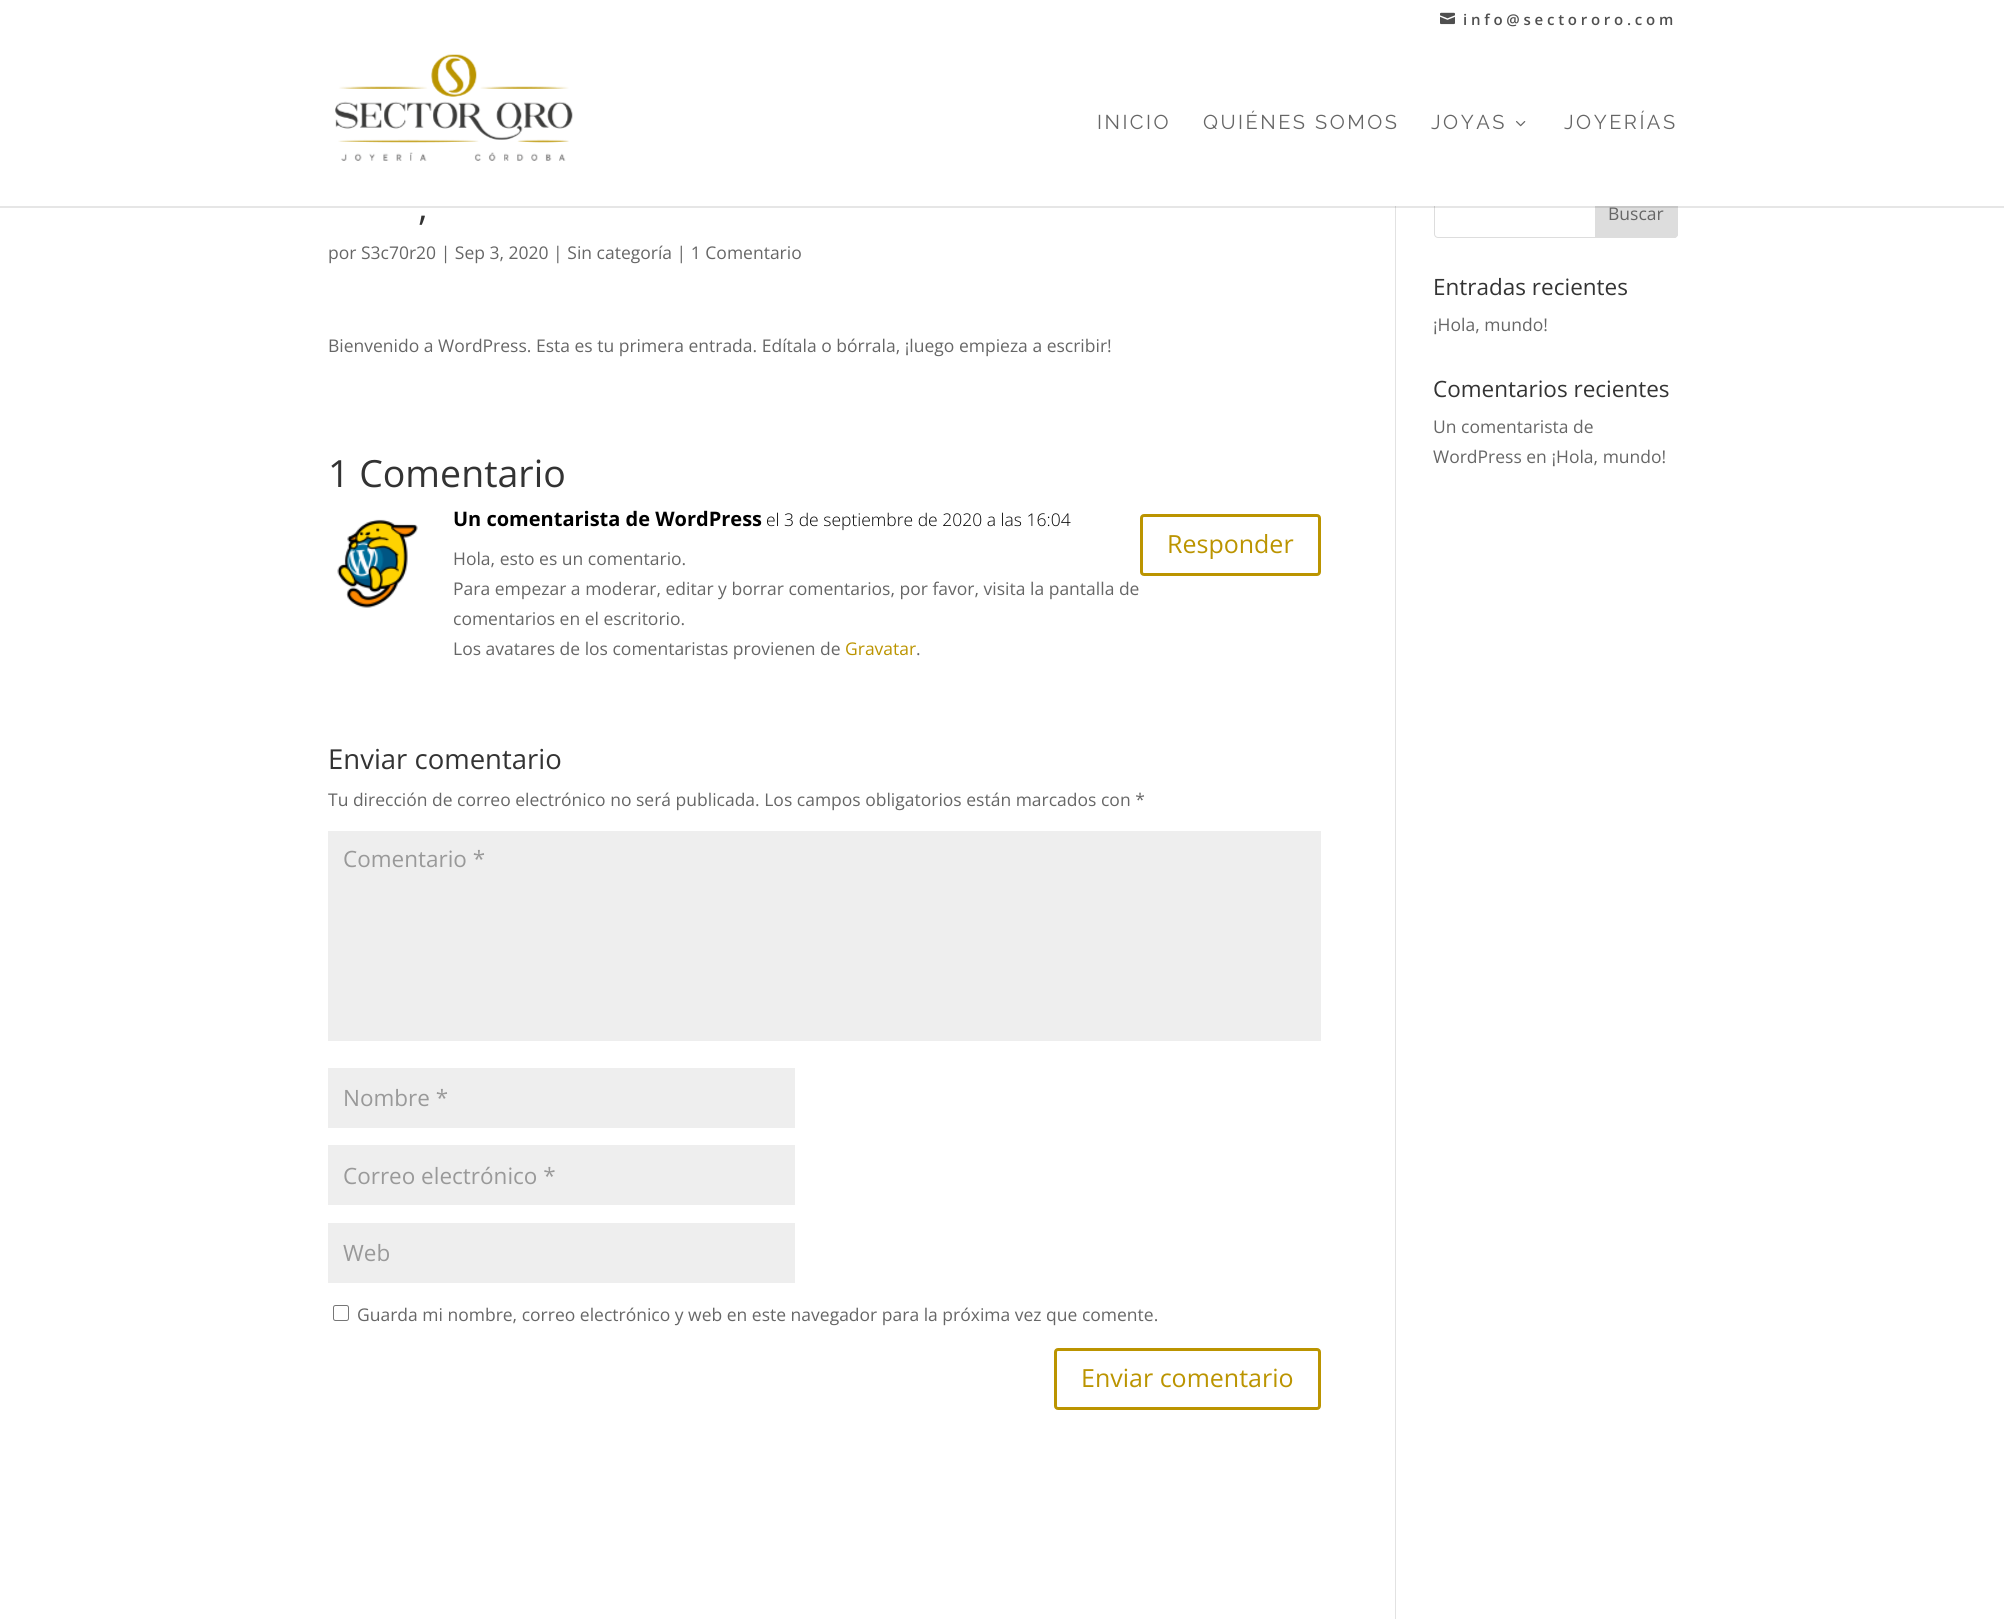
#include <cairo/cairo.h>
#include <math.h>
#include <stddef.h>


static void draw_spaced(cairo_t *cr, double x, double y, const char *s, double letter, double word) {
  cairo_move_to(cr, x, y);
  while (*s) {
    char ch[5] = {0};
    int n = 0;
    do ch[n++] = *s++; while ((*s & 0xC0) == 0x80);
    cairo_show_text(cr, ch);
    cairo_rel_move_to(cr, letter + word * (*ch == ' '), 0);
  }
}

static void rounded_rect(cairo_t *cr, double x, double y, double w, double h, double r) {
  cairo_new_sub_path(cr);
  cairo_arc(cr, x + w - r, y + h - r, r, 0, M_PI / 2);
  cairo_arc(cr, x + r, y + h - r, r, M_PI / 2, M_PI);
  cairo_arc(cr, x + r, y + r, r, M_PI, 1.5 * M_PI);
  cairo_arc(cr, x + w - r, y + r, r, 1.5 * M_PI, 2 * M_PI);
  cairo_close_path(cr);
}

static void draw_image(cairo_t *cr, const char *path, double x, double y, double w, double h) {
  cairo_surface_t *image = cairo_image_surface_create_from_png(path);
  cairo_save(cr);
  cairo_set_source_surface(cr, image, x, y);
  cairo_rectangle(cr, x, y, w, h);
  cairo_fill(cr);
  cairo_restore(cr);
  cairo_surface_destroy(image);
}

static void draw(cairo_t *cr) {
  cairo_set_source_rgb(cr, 1, 1, 1);
  cairo_paint(cr);
  draw_image(cr, "images/1.png", 1440, 12, 15, 13);
  cairo_set_source_rgb(cr, 226 / 255.0, 226 / 255.0, 226 / 255.0);
  cairo_rectangle(cr, 1395, 206, 1, 1413);
  cairo_fill(cr);
  rounded_rect(cr, 1434.5, 188.5, 243, 49, 3.5);
  cairo_set_source_rgb(cr, 221 / 255.0, 221 / 255.0, 221 / 255.0);
  cairo_set_line_width(cr, 1);
  cairo_stroke(cr);
  cairo_new_path(cr);
  cairo_move_to(cr, 1595.5, 188.5);
  cairo_line_to(cr, 1674, 188.5);
  cairo_curve_to(cr, 1676, 188.5, 1677.5, 190, 1677.5, 192);
  cairo_line_to(cr, 1677.5, 234);
  cairo_curve_to(cr, 1677.5, 236, 1676, 237.5, 1674, 237.5);
  cairo_line_to(cr, 1595.5, 237.5);
  cairo_close_path(cr);
  cairo_fill_preserve(cr);
  cairo_stroke(cr);
  cairo_set_source_rgba(cr, 0, 0, 0, 0.1);
  cairo_rectangle(cr, 0, 206, 2004, 2);
  cairo_fill(cr);
  cairo_set_source_rgb(cr, 1, 1, 1);
  cairo_rectangle(cr, 1434, 188, 244, 18);
  cairo_fill(cr);
  draw_image(cr, "images/2.png", 335, 54, 238, 107);
  draw_image(cr, "images/3.png", 1516, 121, 10, 6);
  draw_image(cr, "images/4.png", 337, 519, 81, 89);
  rounded_rect(cr, 1141.5, 515.5, 178, 59, 2.5);
  cairo_set_source_rgb(cr, 187 / 255.0, 148 / 255.0, 0);
  cairo_set_line_width(cr, 3);
  cairo_stroke(cr);
  cairo_set_source_rgb(cr, 238 / 255.0, 238 / 255.0, 238 / 255.0);
  cairo_rectangle(cr, 328, 831, 993, 210);
  cairo_fill(cr);
  cairo_rectangle(cr, 328, 1068, 467, 60);
  cairo_fill(cr);
  cairo_rectangle(cr, 328, 1145, 467, 60);
  cairo_fill(cr);
  cairo_rectangle(cr, 328, 1223, 467, 60);
  cairo_fill(cr);
  rounded_rect(cr, 333.5, 1305.5, 15, 15, 2);
  cairo_set_source_rgb(cr, 118 / 255.0, 118 / 255.0, 118 / 255.0);
  cairo_set_line_width(cr, 1);
  cairo_stroke(cr);
  rounded_rect(cr, 1055.5, 1349.5, 264, 59, 2.5);
  cairo_set_source_rgb(cr, 187 / 255.0, 148 / 255.0, 0);
  cairo_set_line_width(cr, 3);
  cairo_stroke(cr);
  cairo_select_font_face(cr, "Open Sans SemiBold", CAIRO_FONT_SLANT_NORMAL, CAIRO_FONT_WEIGHT_NORMAL);
  cairo_set_font_size(cr, 15);
  cairo_set_source_rgb(cr, 79 / 255.0, 79 / 255.0, 79 / 255.0);
  draw_spaced(cr, 1463, 25, "info@sectororo.com", 3.75, 0);
  cairo_select_font_face(cr, "Raleway Thin", CAIRO_FONT_SLANT_NORMAL, CAIRO_FONT_WEIGHT_NORMAL);
  cairo_set_font_size(cr, 20);
  cairo_set_source_rgb(cr, 102 / 255.0, 102 / 255.0, 102 / 255.0);
  draw_spaced(cr, 1097, 129, "INICIO", 2.5, 0);
  draw_spaced(cr, 1203, 129, "QUIÉNES SOMOS", 2.5, 0);
  draw_spaced(cr, 1431, 129, "JOYAS", 2.5, 0);
  draw_spaced(cr, 1564, 129, "JOYERÍAS", 2.5, 0);
  cairo_select_font_face(cr, "Open Sans", CAIRO_FONT_SLANT_NORMAL, CAIRO_FONT_WEIGHT_NORMAL);
  cairo_set_font_size(cr, 37.5);
  cairo_set_source_rgb(cr, 51 / 255.0, 51 / 255.0, 51 / 255.0);
  cairo_move_to(cr, 418, 220);
  cairo_show_text(cr, ",");
  cairo_set_font_size(cr, 17.5);
  cairo_set_source_rgb(cr, 102 / 255.0, 102 / 255.0, 102 / 255.0);
  cairo_move_to(cr, 328, 259);
  cairo_show_text(cr, "por S3c70r20 | Sep 3, 2020 | Sin categoría | 1 Comentario");
  cairo_move_to(cr, 328, 352);
  cairo_show_text(cr, "Bienvenido a WordPress. Esta es tu primera entrada. Edítala o bórrala, ¡luego empieza a escribir!");
  cairo_set_font_size(cr, 37.5);
  cairo_set_source_rgb(cr, 51 / 255.0, 51 / 255.0, 51 / 255.0);
  cairo_move_to(cr, 328, 487);
  cairo_show_text(cr, "1 Comentario");
  cairo_select_font_face(cr, "Open Sans", CAIRO_FONT_SLANT_NORMAL, CAIRO_FONT_WEIGHT_BOLD);
  cairo_set_font_size(cr, 20);
  cairo_set_source_rgb(cr, 0, 0, 0);
  cairo_move_to(cr, 453, 526);
  cairo_show_text(cr, "Un comentarista de WordPress");
  cairo_select_font_face(cr, "Open Sans Light", CAIRO_FONT_SLANT_NORMAL, CAIRO_FONT_WEIGHT_NORMAL);
  cairo_set_font_size(cr, 17.5);
  cairo_move_to(cr, 766, 526);
  cairo_show_text(cr, "el 3 de septiembre de 2020 a las 16:04");
  cairo_select_font_face(cr, "Open Sans", CAIRO_FONT_SLANT_NORMAL, CAIRO_FONT_WEIGHT_NORMAL);
  cairo_set_font_size(cr, 25);
  cairo_set_source_rgb(cr, 187 / 255.0, 148 / 255.0, 0);
  cairo_move_to(cr, 1167, 553);
  cairo_show_text(cr, "Responder");
  cairo_set_font_size(cr, 17.5);
  cairo_set_source_rgb(cr, 102 / 255.0, 102 / 255.0, 102 / 255.0);
  cairo_move_to(cr, 453, 565);
  cairo_show_text(cr, "Hola, esto es un comentario.");
  cairo_move_to(cr, 453, 595);
  cairo_show_text(cr, "Para empezar a moderar, editar y borrar comentarios, por favor, visita la pantalla de");
  cairo_move_to(cr, 453, 625);
  cairo_show_text(cr, "comentarios en el escritorio.");
  cairo_move_to(cr, 453, 655);
  cairo_show_text(cr, "Los avatares de los comentaristas provienen de");
  cairo_set_source_rgb(cr, 187 / 255.0, 148 / 255.0, 0);
  cairo_move_to(cr, 845, 655);
  cairo_show_text(cr, "Gravatar");
  cairo_set_source_rgb(cr, 102 / 255.0, 102 / 255.0, 102 / 255.0);
  cairo_move_to(cr, 916, 655);
  cairo_show_text(cr, ".");
  cairo_set_font_size(cr, 27.5);
  cairo_set_source_rgb(cr, 51 / 255.0, 51 / 255.0, 51 / 255.0);
  cairo_move_to(cr, 328, 769);
  cairo_show_text(cr, "Enviar comentario");
  cairo_set_font_size(cr, 17.5);
  cairo_set_source_rgb(cr, 102 / 255.0, 102 / 255.0, 102 / 255.0);
  cairo_move_to(cr, 328, 806);
  cairo_show_text(cr, "Tu dirección de correo electrónico no será publicada. Los campos obligatorios están marcados con *");
  cairo_set_font_size(cr, 22.5);
  cairo_set_source_rgb(cr, 153 / 255.0, 153 / 255.0, 153 / 255.0);
  cairo_move_to(cr, 343, 867);
  cairo_show_text(cr, "Comentario *");
  cairo_move_to(cr, 343, 1106);
  cairo_show_text(cr, "Nombre *");
  cairo_move_to(cr, 343, 1184);
  cairo_show_text(cr, "Correo electrónico *");
  cairo_move_to(cr, 343, 1261);
  cairo_show_text(cr, "Web");
  cairo_set_font_size(cr, 17.5);
  cairo_set_source_rgb(cr, 102 / 255.0, 102 / 255.0, 102 / 255.0);
  cairo_move_to(cr, 357, 1321);
  cairo_show_text(cr, "Guarda mi nombre, correo electrónico y web en este navegador para la próxima vez que comente.");
  cairo_set_font_size(cr, 25);
  cairo_set_source_rgb(cr, 187 / 255.0, 148 / 255.0, 0);
  cairo_move_to(cr, 1081, 1387);
  cairo_show_text(cr, "Enviar comentario");
  cairo_set_font_size(cr, 17.5);
  cairo_set_source_rgb(cr, 102 / 255.0, 102 / 255.0, 102 / 255.0);
  cairo_move_to(cr, 1608, 220);
  cairo_show_text(cr, "Buscar");
  cairo_set_font_size(cr, 22.5);
  cairo_set_source_rgb(cr, 51 / 255.0, 51 / 255.0, 51 / 255.0);
  cairo_move_to(cr, 1433, 295);
  cairo_show_text(cr, "Entradas recientes");
  cairo_set_font_size(cr, 17.5);
  cairo_set_source_rgb(cr, 102 / 255.0, 102 / 255.0, 102 / 255.0);
  cairo_move_to(cr, 1433, 331);
  cairo_show_text(cr, "¡Hola, mundo!");
  cairo_set_font_size(cr, 22.5);
  cairo_set_source_rgb(cr, 51 / 255.0, 51 / 255.0, 51 / 255.0);
  cairo_move_to(cr, 1433, 397);
  cairo_show_text(cr, "Comentarios recientes");
  cairo_set_font_size(cr, 17.5);
  cairo_set_source_rgb(cr, 102 / 255.0, 102 / 255.0, 102 / 255.0);
  cairo_move_to(cr, 1433, 433);
  cairo_show_text(cr, "Un comentarista de");
  cairo_move_to(cr, 1433, 463);
  cairo_show_text(cr, "WordPress en ¡Hola, mundo!");
}

int main(void) {
  cairo_surface_t *surface = cairo_image_surface_create(CAIRO_FORMAT_RGB24, 2004, 1619);
  cairo_t *cr = cairo_create(surface);
  cairo_font_options_t *options = cairo_font_options_create();
  cairo_font_options_set_hint_metrics(options, CAIRO_HINT_METRICS_OFF);
  cairo_font_options_set_hint_style(options, CAIRO_HINT_STYLE_NONE);
  cairo_set_font_options(cr, options);
  cairo_set_miter_limit(cr, 4);
  draw(cr);
  cairo_surface_write_to_png(surface, "out.png");
  cairo_font_options_destroy(options);
  cairo_destroy(cr);
  cairo_surface_destroy(surface);
  return 0;
}
